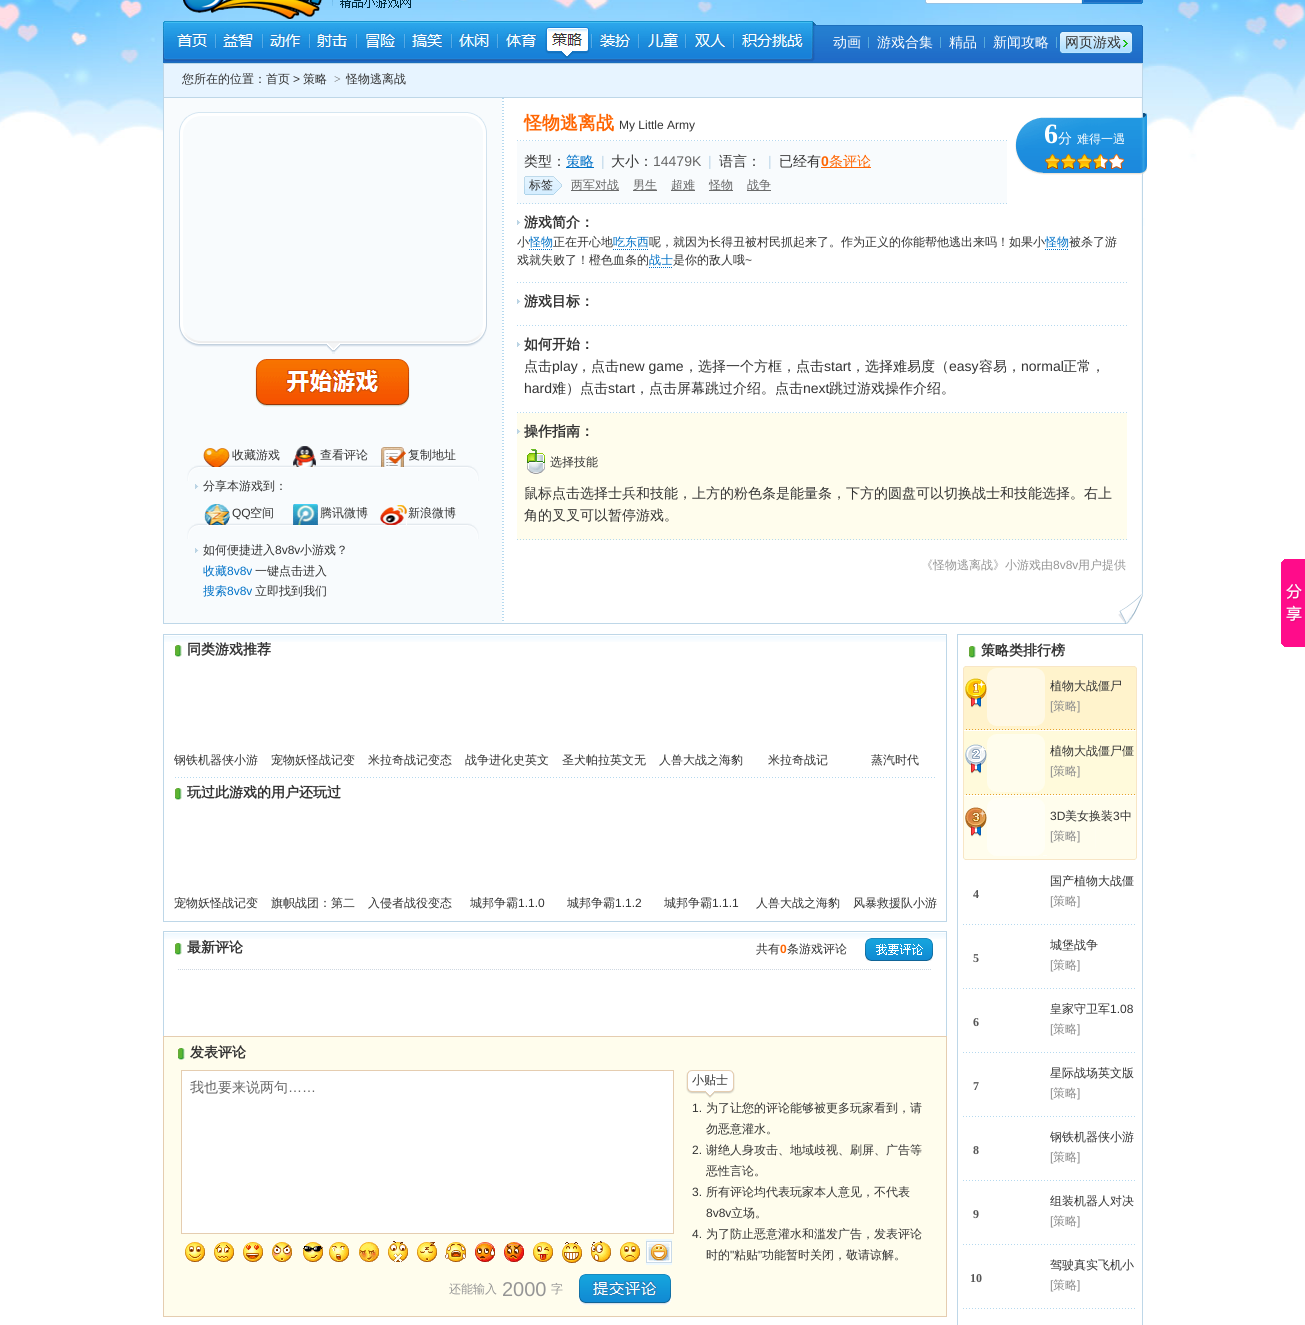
#include <cairo/cairo.h>
#include <math.h>
#include <stddef.h>


static void draw_image(cairo_t *cr, const char *path, double x, double y, double w, double h) {
  cairo_surface_t *image = cairo_image_surface_create_from_png(path);
  cairo_save(cr);
  cairo_set_source_surface(cr, image, x, y);
  cairo_rectangle(cr, x, y, w, h);
  cairo_fill(cr);
  cairo_restore(cr);
  cairo_surface_destroy(image);
}

static void draw(cairo_t *cr) {
  cairo_set_source_rgb(cr, 1, 1, 1);
  cairo_paint(cr);
  draw_image(cr, "images/1.png", 0, 0, 1305, 226);
  draw_image(cr, "images/2.png", 183, 0, 228, 19);
  draw_image(cr, "images/3.png", 925, 0, 218, 4);
  draw_image(cr, "images/4.png", 163, 21, 980, 42);
  draw_image(cr, "images/5.png", 545, 27, 45, 32);
  cairo_set_source_rgb(cr, 87 / 255.0, 169 / 255.0, 219 / 255.0);
  cairo_rectangle(cr, 868, 37, 1, 11);
  cairo_fill(cr);
  cairo_rectangle(cr, 940, 37, 1, 11);
  cairo_fill(cr);
  cairo_rectangle(cr, 984, 37, 1, 11);
  cairo_fill(cr);
  cairo_rectangle(cr, 1056, 37, 1, 11);
  cairo_fill(cr);
  draw_image(cr, "images/6.png", 1059, 31, 74, 23);
  cairo_set_source_rgb(cr, 231 / 255.0, 244 / 255.0, 1);
  cairo_rectangle(cr, 163.5, 63.5, 979, 34);
  cairo_fill_preserve(cr);
  cairo_set_source_rgb(cr, 190 / 255.0, 215 / 255.0, 232 / 255.0);
  cairo_set_line_width(cr, 1);
  cairo_stroke(cr);
  cairo_set_source_rgb(cr, 248 / 255.0, 251 / 255.0, 253 / 255.0);
  cairo_rectangle(cr, 164, 98, 978, 525);
  cairo_fill(cr);
  cairo_set_source_rgb(cr, 190 / 255.0, 215 / 255.0, 232 / 255.0);
  cairo_rectangle(cr, 1142, 98, 1, 494);
  cairo_fill(cr);
  cairo_rectangle(cr, 163, 623, 955, 1);
  cairo_fill(cr);
  cairo_rectangle(cr, 163, 98, 1, 526);
  cairo_fill(cr);
  draw_image(cr, "images/7.png", 179, 112, 308, 242);
  draw_image(cr, "images/8.png", 255, 359, 155, 48);
  draw_image(cr, "images/9.png", 194, 465, 278, 2);
  draw_image(cr, "images/10.png", 203, 448, 27, 19);
  draw_image(cr, "images/11.png", 293, 446, 23, 21);
  draw_image(cr, "images/12.png", 381, 447, 25, 20);
  draw_image(cr, "images/13.png", 187, 467, 292, 14);
  draw_image(cr, "images/14.png", 195, 484, 4, 5);
  draw_image(cr, "images/9.png", 194, 523, 278, 2);
  draw_image(cr, "images/15.png", 204, 504, 26, 21);
  draw_image(cr, "images/16.png", 293, 503, 25, 22);
  draw_image(cr, "images/17.png", 380, 505, 27, 20);
  draw_image(cr, "images/13.png", 187, 525, 292, 14);
  draw_image(cr, "images/14.png", 195, 548, 4, 5);
  cairo_set_source_rgb(cr, 1, 1, 1);
  cairo_rectangle(cr, 502, 98, 639, 525);
  cairo_fill(cr);
  draw_image(cr, "images/18.png", 502, 98, 2, 523);
  draw_image(cr, "images/19.png", 517, 140, 490, 1);
  draw_image(cr, "images/20.png", 1015, 113, 132, 63);
  draw_image(cr, "images/21.png", 1045, 153, 79, 17);
  cairo_set_source_rgb(cr, 248 / 255.0, 251 / 255.0, 253 / 255.0);
  cairo_rectangle(cr, 517, 141, 490, 63);
  cairo_fill(cr);
  draw_image(cr, "images/22.png", 517, 203, 490, 1);
  cairo_set_source_rgb(cr, 0, 113 / 255.0, 199 / 255.0);
  cairo_rectangle(cr, 566, 167, 28, 1);
  cairo_fill(cr);
  cairo_set_source_rgb(cr, 1, 101 / 255.0, 1 / 255.0);
  cairo_rectangle(cr, 821, 167, 50, 1);
  cairo_fill(cr);
  draw_image(cr, "images/23.png", 524, 176, 38, 19);
  cairo_set_source_rgb(cr, 105 / 255.0, 106 / 255.0, 106 / 255.0);
  cairo_rectangle(cr, 571, 190, 48, 1);
  cairo_fill(cr);
  cairo_rectangle(cr, 633, 190, 24, 1);
  cairo_fill(cr);
  cairo_rectangle(cr, 671, 190, 24, 1);
  cairo_fill(cr);
  cairo_rectangle(cr, 709, 190, 24, 1);
  cairo_fill(cr);
  cairo_rectangle(cr, 747, 190, 24, 1);
  cairo_fill(cr);
  draw_image(cr, "images/24.png", 517, 282, 610, 1);
  draw_image(cr, "images/25.png", 517, 220, 4, 5);
  cairo_new_path(cr);
  cairo_move_to(cr, 529, 249.5);
  cairo_line_to(cr, 553, 249.5);
  cairo_set_source_rgb(cr, 0, 113 / 255.0, 199 / 255.0);
  cairo_set_dash(cr, (double[]){1, 1}, 2, 0);
  cairo_stroke(cr);
  cairo_new_path(cr);
  cairo_move_to(cr, 613, 249.5);
  cairo_line_to(cr, 649, 249.5);
  cairo_stroke(cr);
  cairo_new_path(cr);
  cairo_move_to(cr, 1045, 249.5);
  cairo_line_to(cr, 1069, 249.5);
  cairo_stroke(cr);
  cairo_new_path(cr);
  cairo_move_to(cr, 649, 267.5);
  cairo_line_to(cr, 673, 267.5);
  cairo_stroke(cr);
  draw_image(cr, "images/24.png", 517, 325, 610, 1);
  draw_image(cr, "images/25.png", 517, 299, 4, 5);
  draw_image(cr, "images/24.png", 517, 412, 610, 1);
  draw_image(cr, "images/25.png", 517, 342, 4, 5);
  cairo_set_source_rgb(cr, 1, 253 / 255.0, 237 / 255.0);
  cairo_rectangle(cr, 517, 413, 610, 127);
  cairo_fill(cr);
  draw_image(cr, "images/26.png", 517, 539, 610, 1);
  draw_image(cr, "images/27.png", 517, 429, 4, 5);
  draw_image(cr, "images/28.png", 527, 449, 18, 25);
  draw_image(cr, "images/29.png", 1118, 592, 25, 32);
  draw_image(cr, "images/30.png", 164, 636, 782, 6);
  cairo_rectangle(cr, 163.5, 634.5, 783, 287);
  cairo_set_source_rgb(cr, 190 / 255.0, 215 / 255.0, 232 / 255.0);
  cairo_set_dash(cr, NULL, 0, 0);
  cairo_stroke(cr);
  draw_image(cr, "images/31.png", 175, 645, 7, 12);
  draw_image(cr, "images/32.png", 175, 777, 760, 1);
  draw_image(cr, "images/31.png", 175, 788, 7, 12);
  draw_image(cr, "images/30.png", 164, 933, 782, 6);
  cairo_rectangle(cr, 163.5, 931.5, 783, 105);
  cairo_stroke(cr);
  draw_image(cr, "images/31.png", 175, 943, 7, 12);
  cairo_new_path(cr);
  cairo_move_to(cr, 178, 969.5);
  cairo_line_to(cr, 932, 969.5);
  cairo_set_source_rgb(cr, 206 / 255.0, 215 / 255.0, 225 / 255.0);
  cairo_set_dash(cr, (double[]){1, 1}, 2, 0);
  cairo_stroke(cr);
  draw_image(cr, "images/33.png", 865, 938, 68, 23);
  cairo_set_source_rgb(cr, 1, 253 / 255.0, 237 / 255.0);
  cairo_rectangle(cr, 163.5, 1036.5, 783, 280);
  cairo_fill_preserve(cr);
  cairo_set_source_rgb(cr, 229 / 255.0, 205 / 255.0, 176 / 255.0);
  cairo_set_dash(cr, NULL, 0, 0);
  cairo_stroke(cr);
  draw_image(cr, "images/34.png", 178, 1048, 7, 12);
  cairo_set_source_rgb(cr, 1, 1, 1);
  cairo_rectangle(cr, 181.5, 1070.5, 492, 163);
  cairo_fill_preserve(cr);
  cairo_set_source_rgb(cr, 229 / 255.0, 205 / 255.0, 176 / 255.0);
  cairo_stroke(cr);
  draw_image(cr, "images/35.png", 185, 1242, 20, 20);
  draw_image(cr, "images/36.png", 214, 1242, 20, 20);
  draw_image(cr, "images/37.png", 243, 1242, 20, 20);
  draw_image(cr, "images/38.png", 272, 1242, 20, 20);
  draw_image(cr, "images/39.png", 303, 1242, 20, 20);
  draw_image(cr, "images/40.png", 329, 1242, 20, 20);
  draw_image(cr, "images/41.png", 359, 1242, 20, 20);
  draw_image(cr, "images/42.png", 388, 1241, 20, 21);
  draw_image(cr, "images/43.png", 417, 1242, 20, 20);
  draw_image(cr, "images/44.png", 445, 1242, 21, 20);
  draw_image(cr, "images/45.png", 475, 1242, 20, 20);
  draw_image(cr, "images/46.png", 504, 1242, 20, 20);
  draw_image(cr, "images/47.png", 533, 1242, 20, 20);
  draw_image(cr, "images/48.png", 562, 1242, 20, 21);
  draw_image(cr, "images/49.png", 591, 1241, 20, 21);
  draw_image(cr, "images/50.png", 620, 1242, 20, 20);
  draw_image(cr, "images/51.png", 646, 1239, 26, 26);
  draw_image(cr, "images/52.png", 579, 1274, 92, 31);
  draw_image(cr, "images/53.png", 686, 1070, 49, 28);
  cairo_rectangle(cr, 957.5, 634.5, 185, 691);
  cairo_set_source_rgb(cr, 190 / 255.0, 215 / 255.0, 232 / 255.0);
  cairo_stroke(cr);
  draw_image(cr, "images/54.png", 969, 646, 7, 12);
  draw_image(cr, "images/55.png", 963, 666, 174, 194);
  draw_image(cr, "images/56.png", 963, 924, 172, 1);
  draw_image(cr, "images/56.png", 963, 988, 172, 1);
  draw_image(cr, "images/56.png", 963, 1052, 172, 1);
  draw_image(cr, "images/56.png", 963, 1116, 172, 1);
  draw_image(cr, "images/56.png", 963, 1180, 172, 1);
  draw_image(cr, "images/56.png", 963, 1244, 172, 1);
  draw_image(cr, "images/56.png", 963, 1308, 172, 1);
  draw_image(cr, "images/57.png", 1281, 559, 24, 88);
  cairo_select_font_face(cr, "WenQuanYi Zen Hei Medium", CAIRO_FONT_SLANT_NORMAL, CAIRO_FONT_WEIGHT_NORMAL);
  cairo_set_font_size(cr, 14);
  cairo_set_source_rgb(cr, 1, 1, 1);
  cairo_move_to(cr, 833, 47);
  cairo_show_text(cr, "动画");
  cairo_move_to(cr, 877, 47);
  cairo_show_text(cr, "游戏合集");
  cairo_move_to(cr, 949, 47);
  cairo_show_text(cr, "精品");
  cairo_move_to(cr, 993, 47);
  cairo_show_text(cr, "新闻攻略");
  cairo_set_source_rgb(cr, 51 / 255.0, 51 / 255.0, 51 / 255.0);
  cairo_move_to(cr, 1065, 47);
  cairo_show_text(cr, "网页游戏");
  cairo_set_font_size(cr, 12);
  cairo_move_to(cr, 182, 83);
  cairo_show_text(cr, "您所在的位置：首页");
  cairo_select_font_face(cr, "Liberation Sans", CAIRO_FONT_SLANT_NORMAL, CAIRO_FONT_WEIGHT_NORMAL);
  cairo_move_to(cr, 293, 83);
  cairo_show_text(cr, ">");
  cairo_select_font_face(cr, "WenQuanYi Zen Hei Medium", CAIRO_FONT_SLANT_NORMAL, CAIRO_FONT_WEIGHT_NORMAL);
  cairo_move_to(cr, 303, 83);
  cairo_show_text(cr, "策略");
  cairo_select_font_face(cr, "Liberation Serif", CAIRO_FONT_SLANT_NORMAL, CAIRO_FONT_WEIGHT_NORMAL);
  cairo_set_source_rgb(cr, 102 / 255.0, 102 / 255.0, 102 / 255.0);
  cairo_move_to(cr, 334, 83);
  cairo_show_text(cr, ">");
  cairo_select_font_face(cr, "WenQuanYi Zen Hei Medium", CAIRO_FONT_SLANT_NORMAL, CAIRO_FONT_WEIGHT_NORMAL);
  cairo_set_source_rgb(cr, 51 / 255.0, 51 / 255.0, 51 / 255.0);
  cairo_move_to(cr, 346, 83);
  cairo_show_text(cr, "怪物逃离战");
  cairo_move_to(cr, 232, 459);
  cairo_show_text(cr, "收藏游戏");
  cairo_move_to(cr, 320, 459);
  cairo_show_text(cr, "查看评论");
  cairo_move_to(cr, 408, 459);
  cairo_show_text(cr, "复制地址");
  cairo_move_to(cr, 203, 490);
  cairo_show_text(cr, "分享本游戏到：");
  cairo_select_font_face(cr, "Liberation Sans", CAIRO_FONT_SLANT_NORMAL, CAIRO_FONT_WEIGHT_NORMAL);
  cairo_move_to(cr, 232, 517);
  cairo_show_text(cr, "QQ");
  cairo_select_font_face(cr, "WenQuanYi Zen Hei Medium", CAIRO_FONT_SLANT_NORMAL, CAIRO_FONT_WEIGHT_NORMAL);
  cairo_move_to(cr, 250, 517);
  cairo_show_text(cr, "空间");
  cairo_move_to(cr, 320, 517);
  cairo_show_text(cr, "腾讯微博");
  cairo_move_to(cr, 408, 517);
  cairo_show_text(cr, "新浪微博");
  cairo_move_to(cr, 203, 554);
  cairo_show_text(cr, "如何便捷进入");
  cairo_select_font_face(cr, "Liberation Sans", CAIRO_FONT_SLANT_NORMAL, CAIRO_FONT_WEIGHT_NORMAL);
  cairo_move_to(cr, 275, 554);
  cairo_show_text(cr, "8v8v");
  cairo_select_font_face(cr, "WenQuanYi Zen Hei Medium", CAIRO_FONT_SLANT_NORMAL, CAIRO_FONT_WEIGHT_NORMAL);
  cairo_move_to(cr, 300, 554);
  cairo_show_text(cr, "小游戏？");
  cairo_set_source_rgb(cr, 0, 113 / 255.0, 199 / 255.0);
  cairo_move_to(cr, 203, 575);
  cairo_show_text(cr, "收藏");
  cairo_select_font_face(cr, "Liberation Sans", CAIRO_FONT_SLANT_NORMAL, CAIRO_FONT_WEIGHT_NORMAL);
  cairo_move_to(cr, 227, 575);
  cairo_show_text(cr, "8v8v");
  cairo_select_font_face(cr, "WenQuanYi Zen Hei Medium", CAIRO_FONT_SLANT_NORMAL, CAIRO_FONT_WEIGHT_NORMAL);
  cairo_set_source_rgb(cr, 51 / 255.0, 51 / 255.0, 51 / 255.0);
  cairo_move_to(cr, 255, 575);
  cairo_show_text(cr, "一键点击进入");
  cairo_set_source_rgb(cr, 0, 113 / 255.0, 199 / 255.0);
  cairo_move_to(cr, 203, 595);
  cairo_show_text(cr, "搜索");
  cairo_select_font_face(cr, "Liberation Sans", CAIRO_FONT_SLANT_NORMAL, CAIRO_FONT_WEIGHT_NORMAL);
  cairo_move_to(cr, 227, 595);
  cairo_show_text(cr, "8v8v");
  cairo_select_font_face(cr, "WenQuanYi Zen Hei Medium", CAIRO_FONT_SLANT_NORMAL, CAIRO_FONT_WEIGHT_NORMAL);
  cairo_set_source_rgb(cr, 51 / 255.0, 51 / 255.0, 51 / 255.0);
  cairo_move_to(cr, 255, 595);
  cairo_show_text(cr, "立即找到我们");
  cairo_select_font_face(cr, "WenQuanYi Zen Hei", CAIRO_FONT_SLANT_NORMAL, CAIRO_FONT_WEIGHT_BOLD);
  cairo_set_font_size(cr, 18);
  cairo_set_source_rgb(cr, 1, 101 / 255.0, 1 / 255.0);
  cairo_move_to(cr, 524, 129);
  cairo_show_text(cr, "怪物逃离战");
  cairo_select_font_face(cr, "Liberation Sans", CAIRO_FONT_SLANT_NORMAL, CAIRO_FONT_WEIGHT_NORMAL);
  cairo_set_font_size(cr, 12);
  cairo_set_source_rgb(cr, 51 / 255.0, 51 / 255.0, 51 / 255.0);
  cairo_move_to(cr, 619, 129);
  cairo_show_text(cr, "My Little Army");
  cairo_select_font_face(cr, "Liberation Serif", CAIRO_FONT_SLANT_NORMAL, CAIRO_FONT_WEIGHT_BOLD);
  cairo_set_font_size(cr, 28);
  cairo_set_source_rgb(cr, 1, 1, 1);
  cairo_move_to(cr, 1044, 143);
  cairo_show_text(cr, "6");
  cairo_select_font_face(cr, "WenQuanYi Zen Hei Medium", CAIRO_FONT_SLANT_NORMAL, CAIRO_FONT_WEIGHT_NORMAL);
  cairo_set_font_size(cr, 14);
  cairo_move_to(cr, 1058, 143);
  cairo_show_text(cr, "分");
  cairo_set_font_size(cr, 12);
  cairo_move_to(cr, 1077, 143);
  cairo_show_text(cr, "难得一遇");
  cairo_set_font_size(cr, 14);
  cairo_set_source_rgb(cr, 51 / 255.0, 51 / 255.0, 51 / 255.0);
  cairo_move_to(cr, 524, 166);
  cairo_show_text(cr, "类型：");
  cairo_set_source_rgb(cr, 0, 113 / 255.0, 199 / 255.0);
  cairo_move_to(cr, 566, 166);
  cairo_show_text(cr, "策略");
  cairo_select_font_face(cr, "Liberation Sans", CAIRO_FONT_SLANT_NORMAL, CAIRO_FONT_WEIGHT_NORMAL);
  cairo_set_source_rgb(cr, 190 / 255.0, 215 / 255.0, 232 / 255.0);
  cairo_move_to(cr, 601, 166);
  cairo_show_text(cr, "|");
  cairo_select_font_face(cr, "WenQuanYi Zen Hei Medium", CAIRO_FONT_SLANT_NORMAL, CAIRO_FONT_WEIGHT_NORMAL);
  cairo_set_source_rgb(cr, 51 / 255.0, 51 / 255.0, 51 / 255.0);
  cairo_move_to(cr, 611, 166);
  cairo_show_text(cr, "大小：");
  cairo_select_font_face(cr, "Liberation Sans", CAIRO_FONT_SLANT_NORMAL, CAIRO_FONT_WEIGHT_NORMAL);
  cairo_set_source_rgb(cr, 102 / 255.0, 102 / 255.0, 102 / 255.0);
  cairo_move_to(cr, 653, 166);
  cairo_show_text(cr, "14479K");
  cairo_set_source_rgb(cr, 190 / 255.0, 215 / 255.0, 232 / 255.0);
  cairo_move_to(cr, 708, 166);
  cairo_show_text(cr, "|");
  cairo_select_font_face(cr, "WenQuanYi Zen Hei Medium", CAIRO_FONT_SLANT_NORMAL, CAIRO_FONT_WEIGHT_NORMAL);
  cairo_set_source_rgb(cr, 51 / 255.0, 51 / 255.0, 51 / 255.0);
  cairo_move_to(cr, 719, 166);
  cairo_show_text(cr, "语言：");
  cairo_select_font_face(cr, "Liberation Sans", CAIRO_FONT_SLANT_NORMAL, CAIRO_FONT_WEIGHT_NORMAL);
  cairo_set_source_rgb(cr, 190 / 255.0, 215 / 255.0, 232 / 255.0);
  cairo_move_to(cr, 768, 166);
  cairo_show_text(cr, "|");
  cairo_select_font_face(cr, "WenQuanYi Zen Hei Medium", CAIRO_FONT_SLANT_NORMAL, CAIRO_FONT_WEIGHT_NORMAL);
  cairo_set_source_rgb(cr, 51 / 255.0, 51 / 255.0, 51 / 255.0);
  cairo_move_to(cr, 779, 166);
  cairo_show_text(cr, "已经有");
  cairo_select_font_face(cr, "Liberation Sans", CAIRO_FONT_SLANT_NORMAL, CAIRO_FONT_WEIGHT_BOLD);
  cairo_set_source_rgb(cr, 1, 101 / 255.0, 1 / 255.0);
  cairo_move_to(cr, 821, 166);
  cairo_show_text(cr, "0");
  cairo_select_font_face(cr, "WenQuanYi Zen Hei Medium", CAIRO_FONT_SLANT_NORMAL, CAIRO_FONT_WEIGHT_NORMAL);
  cairo_move_to(cr, 829, 166);
  cairo_show_text(cr, "条评论");
  cairo_set_font_size(cr, 12);
  cairo_set_source_rgb(cr, 51 / 255.0, 51 / 255.0, 51 / 255.0);
  cairo_move_to(cr, 529, 189);
  cairo_show_text(cr, "标签");
  cairo_set_source_rgb(cr, 102 / 255.0, 102 / 255.0, 102 / 255.0);
  cairo_move_to(cr, 571, 189);
  cairo_show_text(cr, "两军对战");
  cairo_move_to(cr, 633, 189);
  cairo_show_text(cr, "男生");
  cairo_move_to(cr, 671, 189);
  cairo_show_text(cr, "超难");
  cairo_move_to(cr, 709, 189);
  cairo_show_text(cr, "怪物");
  cairo_move_to(cr, 747, 189);
  cairo_show_text(cr, "战争");
  cairo_select_font_face(cr, "WenQuanYi Zen Hei", CAIRO_FONT_SLANT_NORMAL, CAIRO_FONT_WEIGHT_BOLD);
  cairo_set_font_size(cr, 14);
  cairo_set_source_rgb(cr, 51 / 255.0, 51 / 255.0, 51 / 255.0);
  cairo_move_to(cr, 524, 227);
  cairo_show_text(cr, "游戏简介：");
  cairo_select_font_face(cr, "WenQuanYi Zen Hei Medium", CAIRO_FONT_SLANT_NORMAL, CAIRO_FONT_WEIGHT_NORMAL);
  cairo_set_font_size(cr, 12);
  cairo_move_to(cr, 517, 246);
  cairo_show_text(cr, "小");
  cairo_set_source_rgb(cr, 0, 113 / 255.0, 199 / 255.0);
  cairo_move_to(cr, 529, 246);
  cairo_show_text(cr, "怪物");
  cairo_set_source_rgb(cr, 51 / 255.0, 51 / 255.0, 51 / 255.0);
  cairo_move_to(cr, 553, 246);
  cairo_show_text(cr, "正在开心地");
  cairo_set_source_rgb(cr, 0, 113 / 255.0, 199 / 255.0);
  cairo_move_to(cr, 613, 246);
  cairo_show_text(cr, "吃东西");
  cairo_set_source_rgb(cr, 51 / 255.0, 51 / 255.0, 51 / 255.0);
  cairo_move_to(cr, 649, 246);
  cairo_show_text(cr, "呢，就因为长得丑被村民抓起来了。作为正义的你能帮他逃出来吗！如果小");
  cairo_set_source_rgb(cr, 0, 113 / 255.0, 199 / 255.0);
  cairo_move_to(cr, 1045, 246);
  cairo_show_text(cr, "怪物");
  cairo_set_source_rgb(cr, 51 / 255.0, 51 / 255.0, 51 / 255.0);
  cairo_move_to(cr, 1069, 246);
  cairo_show_text(cr, "被杀了游");
  cairo_move_to(cr, 517, 264);
  cairo_show_text(cr, "戏就失败了！橙色血条的");
  cairo_set_source_rgb(cr, 0, 113 / 255.0, 199 / 255.0);
  cairo_move_to(cr, 649, 264);
  cairo_show_text(cr, "战士");
  cairo_set_source_rgb(cr, 51 / 255.0, 51 / 255.0, 51 / 255.0);
  cairo_move_to(cr, 673, 264);
  cairo_show_text(cr, "是你的敌人哦");
  cairo_select_font_face(cr, "Liberation Sans", CAIRO_FONT_SLANT_NORMAL, CAIRO_FONT_WEIGHT_NORMAL);
  cairo_move_to(cr, 745, 264);
  cairo_show_text(cr, "~");
  cairo_select_font_face(cr, "WenQuanYi Zen Hei", CAIRO_FONT_SLANT_NORMAL, CAIRO_FONT_WEIGHT_BOLD);
  cairo_set_font_size(cr, 14);
  cairo_move_to(cr, 524, 306);
  cairo_show_text(cr, "游戏目标：");
  cairo_move_to(cr, 524, 349);
  cairo_show_text(cr, "如何开始：");
  cairo_select_font_face(cr, "WenQuanYi Zen Hei Medium", CAIRO_FONT_SLANT_NORMAL, CAIRO_FONT_WEIGHT_NORMAL);
  cairo_move_to(cr, 524, 371);
  cairo_show_text(cr, "点击");
  cairo_select_font_face(cr, "Liberation Sans", CAIRO_FONT_SLANT_NORMAL, CAIRO_FONT_WEIGHT_NORMAL);
  cairo_move_to(cr, 552, 371);
  cairo_show_text(cr, "play");
  cairo_select_font_face(cr, "WenQuanYi Zen Hei Medium", CAIRO_FONT_SLANT_NORMAL, CAIRO_FONT_WEIGHT_NORMAL);
  cairo_move_to(cr, 577, 371);
  cairo_show_text(cr, "，点击");
  cairo_select_font_face(cr, "Liberation Sans", CAIRO_FONT_SLANT_NORMAL, CAIRO_FONT_WEIGHT_NORMAL);
  cairo_move_to(cr, 619, 371);
  cairo_show_text(cr, "new game");
  cairo_select_font_face(cr, "WenQuanYi Zen Hei Medium", CAIRO_FONT_SLANT_NORMAL, CAIRO_FONT_WEIGHT_NORMAL);
  cairo_move_to(cr, 684, 371);
  cairo_show_text(cr, "，选择一个方框，点击");
  cairo_select_font_face(cr, "Liberation Sans", CAIRO_FONT_SLANT_NORMAL, CAIRO_FONT_WEIGHT_NORMAL);
  cairo_move_to(cr, 824, 371);
  cairo_show_text(cr, "start");
  cairo_select_font_face(cr, "WenQuanYi Zen Hei Medium", CAIRO_FONT_SLANT_NORMAL, CAIRO_FONT_WEIGHT_NORMAL);
  cairo_move_to(cr, 851, 371);
  cairo_show_text(cr, "，选择难易度（");
  cairo_select_font_face(cr, "Liberation Sans", CAIRO_FONT_SLANT_NORMAL, CAIRO_FONT_WEIGHT_NORMAL);
  cairo_move_to(cr, 949, 371);
  cairo_show_text(cr, "easy");
  cairo_select_font_face(cr, "WenQuanYi Zen Hei Medium", CAIRO_FONT_SLANT_NORMAL, CAIRO_FONT_WEIGHT_NORMAL);
  cairo_move_to(cr, 979, 371);
  cairo_show_text(cr, "容易，");
  cairo_select_font_face(cr, "Liberation Sans", CAIRO_FONT_SLANT_NORMAL, CAIRO_FONT_WEIGHT_NORMAL);
  cairo_move_to(cr, 1021, 371);
  cairo_show_text(cr, "normal");
  cairo_select_font_face(cr, "WenQuanYi Zen Hei Medium", CAIRO_FONT_SLANT_NORMAL, CAIRO_FONT_WEIGHT_NORMAL);
  cairo_move_to(cr, 1063, 371);
  cairo_show_text(cr, "正常，");
  cairo_select_font_face(cr, "Liberation Sans", CAIRO_FONT_SLANT_NORMAL, CAIRO_FONT_WEIGHT_NORMAL);
  cairo_move_to(cr, 524, 393);
  cairo_show_text(cr, "hard");
  cairo_select_font_face(cr, "WenQuanYi Zen Hei Medium", CAIRO_FONT_SLANT_NORMAL, CAIRO_FONT_WEIGHT_NORMAL);
  cairo_move_to(cr, 552, 393);
  cairo_show_text(cr, "难）点击");
  cairo_select_font_face(cr, "Liberation Sans", CAIRO_FONT_SLANT_NORMAL, CAIRO_FONT_WEIGHT_NORMAL);
  cairo_move_to(cr, 608, 393);
  cairo_show_text(cr, "start");
  cairo_select_font_face(cr, "WenQuanYi Zen Hei Medium", CAIRO_FONT_SLANT_NORMAL, CAIRO_FONT_WEIGHT_NORMAL);
  cairo_move_to(cr, 635, 393);
  cairo_show_text(cr, "，点击屏幕跳过介绍。点击");
  cairo_select_font_face(cr, "Liberation Sans", CAIRO_FONT_SLANT_NORMAL, CAIRO_FONT_WEIGHT_NORMAL);
  cairo_move_to(cr, 803, 393);
  cairo_show_text(cr, "next");
  cairo_select_font_face(cr, "WenQuanYi Zen Hei Medium", CAIRO_FONT_SLANT_NORMAL, CAIRO_FONT_WEIGHT_NORMAL);
  cairo_move_to(cr, 829, 393);
  cairo_show_text(cr, "跳过游戏操作介绍。");
  cairo_select_font_face(cr, "WenQuanYi Zen Hei", CAIRO_FONT_SLANT_NORMAL, CAIRO_FONT_WEIGHT_BOLD);
  cairo_move_to(cr, 524, 436);
  cairo_show_text(cr, "操作指南：");
  cairo_select_font_face(cr, "WenQuanYi Zen Hei Medium", CAIRO_FONT_SLANT_NORMAL, CAIRO_FONT_WEIGHT_NORMAL);
  cairo_set_font_size(cr, 12);
  cairo_move_to(cr, 550, 466);
  cairo_show_text(cr, "选择技能");
  cairo_set_font_size(cr, 14);
  cairo_move_to(cr, 524, 498);
  cairo_show_text(cr, "鼠标点击选择士兵和技能，上方的粉色条是能量条，下方的圆盘可以切换战士和技能选择。右上");
  cairo_move_to(cr, 524, 520);
  cairo_show_text(cr, "角的叉叉可以暂停游戏。");
  cairo_set_font_size(cr, 12);
  cairo_set_source_rgb(cr, 149 / 255.0, 149 / 255.0, 149 / 255.0);
  cairo_move_to(cr, 921, 569);
  cairo_show_text(cr, "《怪物逃离战》小游戏由");
  cairo_select_font_face(cr, "Liberation Sans", CAIRO_FONT_SLANT_NORMAL, CAIRO_FONT_WEIGHT_NORMAL);
  cairo_move_to(cr, 1053, 569);
  cairo_show_text(cr, "8v8v");
  cairo_select_font_face(cr, "WenQuanYi Zen Hei Medium", CAIRO_FONT_SLANT_NORMAL, CAIRO_FONT_WEIGHT_NORMAL);
  cairo_move_to(cr, 1078, 569);
  cairo_show_text(cr, "用户提供");
  cairo_select_font_face(cr, "WenQuanYi Zen Hei", CAIRO_FONT_SLANT_NORMAL, CAIRO_FONT_WEIGHT_BOLD);
  cairo_set_font_size(cr, 14);
  cairo_set_source_rgb(cr, 51 / 255.0, 51 / 255.0, 51 / 255.0);
  cairo_move_to(cr, 187, 654);
  cairo_show_text(cr, "同类游戏推荐");
  cairo_select_font_face(cr, "WenQuanYi Zen Hei Medium", CAIRO_FONT_SLANT_NORMAL, CAIRO_FONT_WEIGHT_NORMAL);
  cairo_set_font_size(cr, 12);
  cairo_move_to(cr, 174, 764);
  cairo_show_text(cr, "钢铁机器侠小游");
  cairo_move_to(cr, 271, 764);
  cairo_show_text(cr, "宠物妖怪战记变");
  cairo_move_to(cr, 368, 764);
  cairo_show_text(cr, "米拉奇战记变态");
  cairo_move_to(cr, 465, 764);
  cairo_show_text(cr, "战争进化史英文");
  cairo_move_to(cr, 562, 764);
  cairo_show_text(cr, "圣犬帕拉英文无");
  cairo_move_to(cr, 659, 764);
  cairo_show_text(cr, "人兽大战之海豹");
  cairo_move_to(cr, 768, 764);
  cairo_show_text(cr, "米拉奇战记");
  cairo_move_to(cr, 871, 764);
  cairo_show_text(cr, "蒸汽时代");
  cairo_select_font_face(cr, "WenQuanYi Zen Hei", CAIRO_FONT_SLANT_NORMAL, CAIRO_FONT_WEIGHT_BOLD);
  cairo_set_font_size(cr, 14);
  cairo_move_to(cr, 187, 797);
  cairo_show_text(cr, "玩过此游戏的用户还玩过");
  cairo_select_font_face(cr, "WenQuanYi Zen Hei Medium", CAIRO_FONT_SLANT_NORMAL, CAIRO_FONT_WEIGHT_NORMAL);
  cairo_set_font_size(cr, 12);
  cairo_move_to(cr, 174, 907);
  cairo_show_text(cr, "宠物妖怪战记变");
  cairo_move_to(cr, 271, 907);
  cairo_show_text(cr, "旗帜战团：第二");
  cairo_move_to(cr, 368, 907);
  cairo_show_text(cr, "入侵者战役变态");
  cairo_move_to(cr, 470, 907);
  cairo_show_text(cr, "城邦争霸");
  cairo_select_font_face(cr, "Liberation Sans", CAIRO_FONT_SLANT_NORMAL, CAIRO_FONT_WEIGHT_NORMAL);
  cairo_move_to(cr, 518, 907);
  cairo_show_text(cr, "1.1.0");
  cairo_select_font_face(cr, "WenQuanYi Zen Hei Medium", CAIRO_FONT_SLANT_NORMAL, CAIRO_FONT_WEIGHT_NORMAL);
  cairo_move_to(cr, 567, 907);
  cairo_show_text(cr, "城邦争霸");
  cairo_select_font_face(cr, "Liberation Sans", CAIRO_FONT_SLANT_NORMAL, CAIRO_FONT_WEIGHT_NORMAL);
  cairo_move_to(cr, 615, 907);
  cairo_show_text(cr, "1.1.2");
  cairo_select_font_face(cr, "WenQuanYi Zen Hei Medium", CAIRO_FONT_SLANT_NORMAL, CAIRO_FONT_WEIGHT_NORMAL);
  cairo_move_to(cr, 664, 907);
  cairo_show_text(cr, "城邦争霸");
  cairo_select_font_face(cr, "Liberation Sans", CAIRO_FONT_SLANT_NORMAL, CAIRO_FONT_WEIGHT_NORMAL);
  cairo_move_to(cr, 712, 907);
  cairo_show_text(cr, "1.1.1");
  cairo_select_font_face(cr, "WenQuanYi Zen Hei Medium", CAIRO_FONT_SLANT_NORMAL, CAIRO_FONT_WEIGHT_NORMAL);
  cairo_move_to(cr, 756, 907);
  cairo_show_text(cr, "人兽大战之海豹");
  cairo_move_to(cr, 853, 907);
  cairo_show_text(cr, "风暴救援队小游");
  cairo_select_font_face(cr, "WenQuanYi Zen Hei", CAIRO_FONT_SLANT_NORMAL, CAIRO_FONT_WEIGHT_BOLD);
  cairo_set_font_size(cr, 14);
  cairo_move_to(cr, 187, 952);
  cairo_show_text(cr, "最新评论");
  cairo_select_font_face(cr, "WenQuanYi Zen Hei Medium", CAIRO_FONT_SLANT_NORMAL, CAIRO_FONT_WEIGHT_NORMAL);
  cairo_set_font_size(cr, 12);
  cairo_move_to(cr, 756, 953);
  cairo_show_text(cr, "共有");
  cairo_select_font_face(cr, "Liberation Sans", CAIRO_FONT_SLANT_NORMAL, CAIRO_FONT_WEIGHT_BOLD);
  cairo_set_source_rgb(cr, 1, 101 / 255.0, 1 / 255.0);
  cairo_move_to(cr, 780, 953);
  cairo_show_text(cr, "0");
  cairo_select_font_face(cr, "WenQuanYi Zen Hei Medium", CAIRO_FONT_SLANT_NORMAL, CAIRO_FONT_WEIGHT_NORMAL);
  cairo_set_source_rgb(cr, 51 / 255.0, 51 / 255.0, 51 / 255.0);
  cairo_move_to(cr, 787, 953);
  cairo_show_text(cr, "条游戏评论");
  cairo_select_font_face(cr, "WenQuanYi Zen Hei", CAIRO_FONT_SLANT_NORMAL, CAIRO_FONT_WEIGHT_BOLD);
  cairo_set_font_size(cr, 14);
  cairo_move_to(cr, 190, 1057);
  cairo_show_text(cr, "发表评论");
  cairo_select_font_face(cr, "WenQuanYi Zen Hei Medium", CAIRO_FONT_SLANT_NORMAL, CAIRO_FONT_WEIGHT_NORMAL);
  cairo_set_source_rgb(cr, 102 / 255.0, 102 / 255.0, 102 / 255.0);
  cairo_move_to(cr, 190, 1092);
  cairo_show_text(cr, "我也要来说两句");
  cairo_select_font_face(cr, "Liberation Sans", CAIRO_FONT_SLANT_NORMAL, CAIRO_FONT_WEIGHT_NORMAL);
  cairo_move_to(cr, 288, 1092);
  cairo_show_text(cr, "……");
  cairo_select_font_face(cr, "WenQuanYi Zen Hei Medium", CAIRO_FONT_SLANT_NORMAL, CAIRO_FONT_WEIGHT_NORMAL);
  cairo_set_font_size(cr, 12);
  cairo_set_source_rgb(cr, 149 / 255.0, 149 / 255.0, 149 / 255.0);
  cairo_move_to(cr, 449, 1293);
  cairo_show_text(cr, "还能输入");
  cairo_select_font_face(cr, "Liberation Sans", CAIRO_FONT_SLANT_NORMAL, CAIRO_FONT_WEIGHT_NORMAL);
  cairo_set_font_size(cr, 20);
  cairo_move_to(cr, 502, 1296);
  cairo_show_text(cr, "2000");
  cairo_select_font_face(cr, "WenQuanYi Zen Hei Medium", CAIRO_FONT_SLANT_NORMAL, CAIRO_FONT_WEIGHT_NORMAL);
  cairo_set_font_size(cr, 12);
  cairo_move_to(cr, 551, 1293);
  cairo_show_text(cr, "字");
  cairo_set_source_rgb(cr, 51 / 255.0, 51 / 255.0, 51 / 255.0);
  cairo_move_to(cr, 692, 1084);
  cairo_show_text(cr, "小贴士");
  cairo_select_font_face(cr, "Liberation Sans", CAIRO_FONT_SLANT_NORMAL, CAIRO_FONT_WEIGHT_NORMAL);
  cairo_move_to(cr, 692, 1112);
  cairo_show_text(cr, "1.");
  cairo_select_font_face(cr, "WenQuanYi Zen Hei Medium", CAIRO_FONT_SLANT_NORMAL, CAIRO_FONT_WEIGHT_NORMAL);
  cairo_move_to(cr, 706, 1112);
  cairo_show_text(cr, "为了让您的评论能够被更多玩家看到，请");
  cairo_move_to(cr, 706, 1133);
  cairo_show_text(cr, "勿恶意灌水。");
  cairo_select_font_face(cr, "Liberation Sans", CAIRO_FONT_SLANT_NORMAL, CAIRO_FONT_WEIGHT_NORMAL);
  cairo_move_to(cr, 692, 1154);
  cairo_show_text(cr, "2.");
  cairo_select_font_face(cr, "WenQuanYi Zen Hei Medium", CAIRO_FONT_SLANT_NORMAL, CAIRO_FONT_WEIGHT_NORMAL);
  cairo_move_to(cr, 706, 1154);
  cairo_show_text(cr, "谢绝人身攻击、地域歧视、刷屏、广告等");
  cairo_move_to(cr, 706, 1175);
  cairo_show_text(cr, "恶性言论。");
  cairo_select_font_face(cr, "Liberation Sans", CAIRO_FONT_SLANT_NORMAL, CAIRO_FONT_WEIGHT_NORMAL);
  cairo_move_to(cr, 692, 1196);
  cairo_show_text(cr, "3.");
  cairo_select_font_face(cr, "WenQuanYi Zen Hei Medium", CAIRO_FONT_SLANT_NORMAL, CAIRO_FONT_WEIGHT_NORMAL);
  cairo_move_to(cr, 706, 1196);
  cairo_show_text(cr, "所有评论均代表玩家本人意见，不代表");
  cairo_select_font_face(cr, "Liberation Sans", CAIRO_FONT_SLANT_NORMAL, CAIRO_FONT_WEIGHT_NORMAL);
  cairo_move_to(cr, 706, 1217);
  cairo_show_text(cr, "8v8v");
  cairo_select_font_face(cr, "WenQuanYi Zen Hei Medium", CAIRO_FONT_SLANT_NORMAL, CAIRO_FONT_WEIGHT_NORMAL);
  cairo_move_to(cr, 731, 1217);
  cairo_show_text(cr, "立场。");
  cairo_select_font_face(cr, "Liberation Sans", CAIRO_FONT_SLANT_NORMAL, CAIRO_FONT_WEIGHT_NORMAL);
  cairo_move_to(cr, 692, 1238);
  cairo_show_text(cr, "4.");
  cairo_select_font_face(cr, "WenQuanYi Zen Hei Medium", CAIRO_FONT_SLANT_NORMAL, CAIRO_FONT_WEIGHT_NORMAL);
  cairo_move_to(cr, 706, 1238);
  cairo_show_text(cr, "为了防止恶意灌水和滥发广告，发表评论");
  cairo_move_to(cr, 706, 1259);
  cairo_show_text(cr, "时的");
  cairo_select_font_face(cr, "Liberation Sans", CAIRO_FONT_SLANT_NORMAL, CAIRO_FONT_WEIGHT_NORMAL);
  cairo_move_to(cr, 730, 1259);
  cairo_show_text(cr, "\"");
  cairo_select_font_face(cr, "WenQuanYi Zen Hei Medium", CAIRO_FONT_SLANT_NORMAL, CAIRO_FONT_WEIGHT_NORMAL);
  cairo_move_to(cr, 734, 1259);
  cairo_show_text(cr, "粘贴");
  cairo_select_font_face(cr, "Liberation Sans", CAIRO_FONT_SLANT_NORMAL, CAIRO_FONT_WEIGHT_NORMAL);
  cairo_move_to(cr, 758, 1259);
  cairo_show_text(cr, "\"");
  cairo_select_font_face(cr, "WenQuanYi Zen Hei Medium", CAIRO_FONT_SLANT_NORMAL, CAIRO_FONT_WEIGHT_NORMAL);
  cairo_move_to(cr, 762, 1259);
  cairo_show_text(cr, "功能暂时关闭，敬请谅解。");
  cairo_select_font_face(cr, "WenQuanYi Zen Hei", CAIRO_FONT_SLANT_NORMAL, CAIRO_FONT_WEIGHT_BOLD);
  cairo_set_font_size(cr, 14);
  cairo_move_to(cr, 981, 655);
  cairo_show_text(cr, "策略类排行榜");
  cairo_select_font_face(cr, "WenQuanYi Zen Hei Medium", CAIRO_FONT_SLANT_NORMAL, CAIRO_FONT_WEIGHT_NORMAL);
  cairo_set_font_size(cr, 12);
  cairo_move_to(cr, 1050, 690);
  cairo_show_text(cr, "植物大战僵尸");
  cairo_select_font_face(cr, "Liberation Sans", CAIRO_FONT_SLANT_NORMAL, CAIRO_FONT_WEIGHT_NORMAL);
  cairo_set_source_rgb(cr, 140 / 255.0, 140 / 255.0, 140 / 255.0);
  cairo_move_to(cr, 1050, 710);
  cairo_show_text(cr, "[");
  cairo_select_font_face(cr, "WenQuanYi Zen Hei Medium", CAIRO_FONT_SLANT_NORMAL, CAIRO_FONT_WEIGHT_NORMAL);
  cairo_move_to(cr, 1053, 710);
  cairo_show_text(cr, "策略");
  cairo_select_font_face(cr, "Liberation Sans", CAIRO_FONT_SLANT_NORMAL, CAIRO_FONT_WEIGHT_NORMAL);
  cairo_move_to(cr, 1077, 710);
  cairo_show_text(cr, "]");
  cairo_select_font_face(cr, "WenQuanYi Zen Hei Medium", CAIRO_FONT_SLANT_NORMAL, CAIRO_FONT_WEIGHT_NORMAL);
  cairo_set_source_rgb(cr, 51 / 255.0, 51 / 255.0, 51 / 255.0);
  cairo_move_to(cr, 1050, 755);
  cairo_show_text(cr, "植物大战僵尸僵");
  cairo_select_font_face(cr, "Liberation Sans", CAIRO_FONT_SLANT_NORMAL, CAIRO_FONT_WEIGHT_NORMAL);
  cairo_set_source_rgb(cr, 140 / 255.0, 140 / 255.0, 140 / 255.0);
  cairo_move_to(cr, 1050, 775);
  cairo_show_text(cr, "[");
  cairo_select_font_face(cr, "WenQuanYi Zen Hei Medium", CAIRO_FONT_SLANT_NORMAL, CAIRO_FONT_WEIGHT_NORMAL);
  cairo_move_to(cr, 1053, 775);
  cairo_show_text(cr, "策略");
  cairo_select_font_face(cr, "Liberation Sans", CAIRO_FONT_SLANT_NORMAL, CAIRO_FONT_WEIGHT_NORMAL);
  cairo_move_to(cr, 1077, 775);
  cairo_show_text(cr, "]");
  cairo_set_source_rgb(cr, 51 / 255.0, 51 / 255.0, 51 / 255.0);
  cairo_move_to(cr, 1050, 820);
  cairo_show_text(cr, "3D");
  cairo_select_font_face(cr, "WenQuanYi Zen Hei Medium", CAIRO_FONT_SLANT_NORMAL, CAIRO_FONT_WEIGHT_NORMAL);
  cairo_move_to(cr, 1065, 820);
  cairo_show_text(cr, "美女换装");
  cairo_select_font_face(cr, "Liberation Sans", CAIRO_FONT_SLANT_NORMAL, CAIRO_FONT_WEIGHT_NORMAL);
  cairo_move_to(cr, 1113, 820);
  cairo_show_text(cr, "3");
  cairo_select_font_face(cr, "WenQuanYi Zen Hei Medium", CAIRO_FONT_SLANT_NORMAL, CAIRO_FONT_WEIGHT_NORMAL);
  cairo_move_to(cr, 1120, 820);
  cairo_show_text(cr, "中");
  cairo_select_font_face(cr, "Liberation Sans", CAIRO_FONT_SLANT_NORMAL, CAIRO_FONT_WEIGHT_NORMAL);
  cairo_set_source_rgb(cr, 140 / 255.0, 140 / 255.0, 140 / 255.0);
  cairo_move_to(cr, 1050, 840);
  cairo_show_text(cr, "[");
  cairo_select_font_face(cr, "WenQuanYi Zen Hei Medium", CAIRO_FONT_SLANT_NORMAL, CAIRO_FONT_WEIGHT_NORMAL);
  cairo_move_to(cr, 1053, 840);
  cairo_show_text(cr, "策略");
  cairo_select_font_face(cr, "Liberation Sans", CAIRO_FONT_SLANT_NORMAL, CAIRO_FONT_WEIGHT_NORMAL);
  cairo_move_to(cr, 1077, 840);
  cairo_show_text(cr, "]");
  cairo_select_font_face(cr, "Liberation Serif", CAIRO_FONT_SLANT_NORMAL, CAIRO_FONT_WEIGHT_BOLD);
  cairo_set_source_rgb(cr, 85 / 255.0, 85 / 255.0, 85 / 255.0);
  cairo_move_to(cr, 973, 898);
  cairo_show_text(cr, "4");
  cairo_select_font_face(cr, "WenQuanYi Zen Hei Medium", CAIRO_FONT_SLANT_NORMAL, CAIRO_FONT_WEIGHT_NORMAL);
  cairo_set_source_rgb(cr, 51 / 255.0, 51 / 255.0, 51 / 255.0);
  cairo_move_to(cr, 1050, 885);
  cairo_show_text(cr, "国产植物大战僵");
  cairo_select_font_face(cr, "Liberation Sans", CAIRO_FONT_SLANT_NORMAL, CAIRO_FONT_WEIGHT_NORMAL);
  cairo_set_source_rgb(cr, 140 / 255.0, 140 / 255.0, 140 / 255.0);
  cairo_move_to(cr, 1050, 905);
  cairo_show_text(cr, "[");
  cairo_select_font_face(cr, "WenQuanYi Zen Hei Medium", CAIRO_FONT_SLANT_NORMAL, CAIRO_FONT_WEIGHT_NORMAL);
  cairo_move_to(cr, 1053, 905);
  cairo_show_text(cr, "策略");
  cairo_select_font_face(cr, "Liberation Sans", CAIRO_FONT_SLANT_NORMAL, CAIRO_FONT_WEIGHT_NORMAL);
  cairo_move_to(cr, 1077, 905);
  cairo_show_text(cr, "]");
  cairo_select_font_face(cr, "Liberation Serif", CAIRO_FONT_SLANT_NORMAL, CAIRO_FONT_WEIGHT_BOLD);
  cairo_set_source_rgb(cr, 85 / 255.0, 85 / 255.0, 85 / 255.0);
  cairo_move_to(cr, 973, 962);
  cairo_show_text(cr, "5");
  cairo_save(cr);
  cairo_rectangle(cr, 1050, 925, 86, 30);
  cairo_clip(cr);
  cairo_select_font_face(cr, "WenQuanYi Zen Hei Medium", CAIRO_FONT_SLANT_NORMAL, CAIRO_FONT_WEIGHT_NORMAL);
  cairo_set_source_rgb(cr, 51 / 255.0, 51 / 255.0, 51 / 255.0);
  cairo_move_to(cr, 1050, 949);
  cairo_show_text(cr, "城堡战争");
  cairo_restore(cr);
  cairo_select_font_face(cr, "Liberation Sans", CAIRO_FONT_SLANT_NORMAL, CAIRO_FONT_WEIGHT_NORMAL);
  cairo_set_source_rgb(cr, 140 / 255.0, 140 / 255.0, 140 / 255.0);
  cairo_move_to(cr, 1050, 969);
  cairo_show_text(cr, "[");
  cairo_select_font_face(cr, "WenQuanYi Zen Hei Medium", CAIRO_FONT_SLANT_NORMAL, CAIRO_FONT_WEIGHT_NORMAL);
  cairo_move_to(cr, 1053, 969);
  cairo_show_text(cr, "策略");
  cairo_select_font_face(cr, "Liberation Sans", CAIRO_FONT_SLANT_NORMAL, CAIRO_FONT_WEIGHT_NORMAL);
  cairo_move_to(cr, 1077, 969);
  cairo_show_text(cr, "]");
  cairo_select_font_face(cr, "Liberation Serif", CAIRO_FONT_SLANT_NORMAL, CAIRO_FONT_WEIGHT_BOLD);
  cairo_set_source_rgb(cr, 85 / 255.0, 85 / 255.0, 85 / 255.0);
  cairo_move_to(cr, 973, 1026);
  cairo_show_text(cr, "6");
  cairo_select_font_face(cr, "WenQuanYi Zen Hei Medium", CAIRO_FONT_SLANT_NORMAL, CAIRO_FONT_WEIGHT_NORMAL);
  cairo_set_source_rgb(cr, 51 / 255.0, 51 / 255.0, 51 / 255.0);
  cairo_move_to(cr, 1050, 1013);
  cairo_show_text(cr, "皇家守卫军");
  cairo_select_font_face(cr, "Liberation Sans", CAIRO_FONT_SLANT_NORMAL, CAIRO_FONT_WEIGHT_NORMAL);
  cairo_move_to(cr, 1110, 1013);
  cairo_show_text(cr, "1.08");
  cairo_set_source_rgb(cr, 140 / 255.0, 140 / 255.0, 140 / 255.0);
  cairo_move_to(cr, 1050, 1033);
  cairo_show_text(cr, "[");
  cairo_select_font_face(cr, "WenQuanYi Zen Hei Medium", CAIRO_FONT_SLANT_NORMAL, CAIRO_FONT_WEIGHT_NORMAL);
  cairo_move_to(cr, 1053, 1033);
  cairo_show_text(cr, "策略");
  cairo_select_font_face(cr, "Liberation Sans", CAIRO_FONT_SLANT_NORMAL, CAIRO_FONT_WEIGHT_NORMAL);
  cairo_move_to(cr, 1077, 1033);
  cairo_show_text(cr, "]");
  cairo_select_font_face(cr, "Liberation Serif", CAIRO_FONT_SLANT_NORMAL, CAIRO_FONT_WEIGHT_BOLD);
  cairo_set_source_rgb(cr, 85 / 255.0, 85 / 255.0, 85 / 255.0);
  cairo_move_to(cr, 973, 1090);
  cairo_show_text(cr, "7");
  cairo_select_font_face(cr, "WenQuanYi Zen Hei Medium", CAIRO_FONT_SLANT_NORMAL, CAIRO_FONT_WEIGHT_NORMAL);
  cairo_set_source_rgb(cr, 51 / 255.0, 51 / 255.0, 51 / 255.0);
  cairo_move_to(cr, 1050, 1077);
  cairo_show_text(cr, "星际战场英文版");
  cairo_select_font_face(cr, "Liberation Sans", CAIRO_FONT_SLANT_NORMAL, CAIRO_FONT_WEIGHT_NORMAL);
  cairo_set_source_rgb(cr, 140 / 255.0, 140 / 255.0, 140 / 255.0);
  cairo_move_to(cr, 1050, 1097);
  cairo_show_text(cr, "[");
  cairo_select_font_face(cr, "WenQuanYi Zen Hei Medium", CAIRO_FONT_SLANT_NORMAL, CAIRO_FONT_WEIGHT_NORMAL);
  cairo_move_to(cr, 1053, 1097);
  cairo_show_text(cr, "策略");
  cairo_select_font_face(cr, "Liberation Sans", CAIRO_FONT_SLANT_NORMAL, CAIRO_FONT_WEIGHT_NORMAL);
  cairo_move_to(cr, 1077, 1097);
  cairo_show_text(cr, "]");
  cairo_select_font_face(cr, "Liberation Serif", CAIRO_FONT_SLANT_NORMAL, CAIRO_FONT_WEIGHT_BOLD);
  cairo_set_source_rgb(cr, 85 / 255.0, 85 / 255.0, 85 / 255.0);
  cairo_move_to(cr, 973, 1154);
  cairo_show_text(cr, "8");
  cairo_select_font_face(cr, "WenQuanYi Zen Hei Medium", CAIRO_FONT_SLANT_NORMAL, CAIRO_FONT_WEIGHT_NORMAL);
  cairo_set_source_rgb(cr, 51 / 255.0, 51 / 255.0, 51 / 255.0);
  cairo_move_to(cr, 1050, 1141);
  cairo_show_text(cr, "钢铁机器侠小游");
  cairo_select_font_face(cr, "Liberation Sans", CAIRO_FONT_SLANT_NORMAL, CAIRO_FONT_WEIGHT_NORMAL);
  cairo_set_source_rgb(cr, 140 / 255.0, 140 / 255.0, 140 / 255.0);
  cairo_move_to(cr, 1050, 1161);
  cairo_show_text(cr, "[");
  cairo_select_font_face(cr, "WenQuanYi Zen Hei Medium", CAIRO_FONT_SLANT_NORMAL, CAIRO_FONT_WEIGHT_NORMAL);
  cairo_move_to(cr, 1053, 1161);
  cairo_show_text(cr, "策略");
  cairo_select_font_face(cr, "Liberation Sans", CAIRO_FONT_SLANT_NORMAL, CAIRO_FONT_WEIGHT_NORMAL);
  cairo_move_to(cr, 1077, 1161);
  cairo_show_text(cr, "]");
  cairo_select_font_face(cr, "Liberation Serif", CAIRO_FONT_SLANT_NORMAL, CAIRO_FONT_WEIGHT_BOLD);
  cairo_set_source_rgb(cr, 85 / 255.0, 85 / 255.0, 85 / 255.0);
  cairo_move_to(cr, 973, 1218);
  cairo_show_text(cr, "9");
  cairo_save(cr);
  cairo_rectangle(cr, 1050, 1181, 86, 30);
  cairo_clip(cr);
  cairo_select_font_face(cr, "WenQuanYi Zen Hei Medium", CAIRO_FONT_SLANT_NORMAL, CAIRO_FONT_WEIGHT_NORMAL);
  cairo_set_source_rgb(cr, 51 / 255.0, 51 / 255.0, 51 / 255.0);
  cairo_move_to(cr, 1050, 1205);
  cairo_show_text(cr, "组装机器人对决");
  cairo_restore(cr);
  cairo_select_font_face(cr, "Liberation Sans", CAIRO_FONT_SLANT_NORMAL, CAIRO_FONT_WEIGHT_NORMAL);
  cairo_set_source_rgb(cr, 140 / 255.0, 140 / 255.0, 140 / 255.0);
  cairo_move_to(cr, 1050, 1225);
  cairo_show_text(cr, "[");
  cairo_select_font_face(cr, "WenQuanYi Zen Hei Medium", CAIRO_FONT_SLANT_NORMAL, CAIRO_FONT_WEIGHT_NORMAL);
  cairo_move_to(cr, 1053, 1225);
  cairo_show_text(cr, "策略");
  cairo_select_font_face(cr, "Liberation Sans", CAIRO_FONT_SLANT_NORMAL, CAIRO_FONT_WEIGHT_NORMAL);
  cairo_move_to(cr, 1077, 1225);
  cairo_show_text(cr, "]");
  cairo_select_font_face(cr, "Liberation Serif", CAIRO_FONT_SLANT_NORMAL, CAIRO_FONT_WEIGHT_BOLD);
  cairo_set_source_rgb(cr, 85 / 255.0, 85 / 255.0, 85 / 255.0);
  cairo_move_to(cr, 970, 1282);
  cairo_show_text(cr, "10");
  cairo_select_font_face(cr, "WenQuanYi Zen Hei Medium", CAIRO_FONT_SLANT_NORMAL, CAIRO_FONT_WEIGHT_NORMAL);
  cairo_set_source_rgb(cr, 51 / 255.0, 51 / 255.0, 51 / 255.0);
  cairo_move_to(cr, 1050, 1269);
  cairo_show_text(cr, "驾驶真实飞机小");
  cairo_select_font_face(cr, "Liberation Sans", CAIRO_FONT_SLANT_NORMAL, CAIRO_FONT_WEIGHT_NORMAL);
  cairo_set_source_rgb(cr, 140 / 255.0, 140 / 255.0, 140 / 255.0);
  cairo_move_to(cr, 1050, 1289);
  cairo_show_text(cr, "[");
  cairo_select_font_face(cr, "WenQuanYi Zen Hei Medium", CAIRO_FONT_SLANT_NORMAL, CAIRO_FONT_WEIGHT_NORMAL);
  cairo_move_to(cr, 1053, 1289);
  cairo_show_text(cr, "策略");
  cairo_select_font_face(cr, "Liberation Sans", CAIRO_FONT_SLANT_NORMAL, CAIRO_FONT_WEIGHT_NORMAL);
  cairo_move_to(cr, 1077, 1289);
  cairo_show_text(cr, "]");
}

int main(void) {
  cairo_surface_t *surface = cairo_image_surface_create(CAIRO_FORMAT_RGB24, 1305, 1325);
  cairo_t *cr = cairo_create(surface);
  cairo_font_options_t *options = cairo_font_options_create();
  cairo_font_options_set_hint_metrics(options, CAIRO_HINT_METRICS_OFF);
  cairo_font_options_set_hint_style(options, CAIRO_HINT_STYLE_NONE);
  cairo_set_font_options(cr, options);
  cairo_set_miter_limit(cr, 4);
  draw(cr);
  cairo_surface_write_to_png(surface, "out.png");
  cairo_font_options_destroy(options);
  cairo_destroy(cr);
  cairo_surface_destroy(surface);
  return 0;
}
